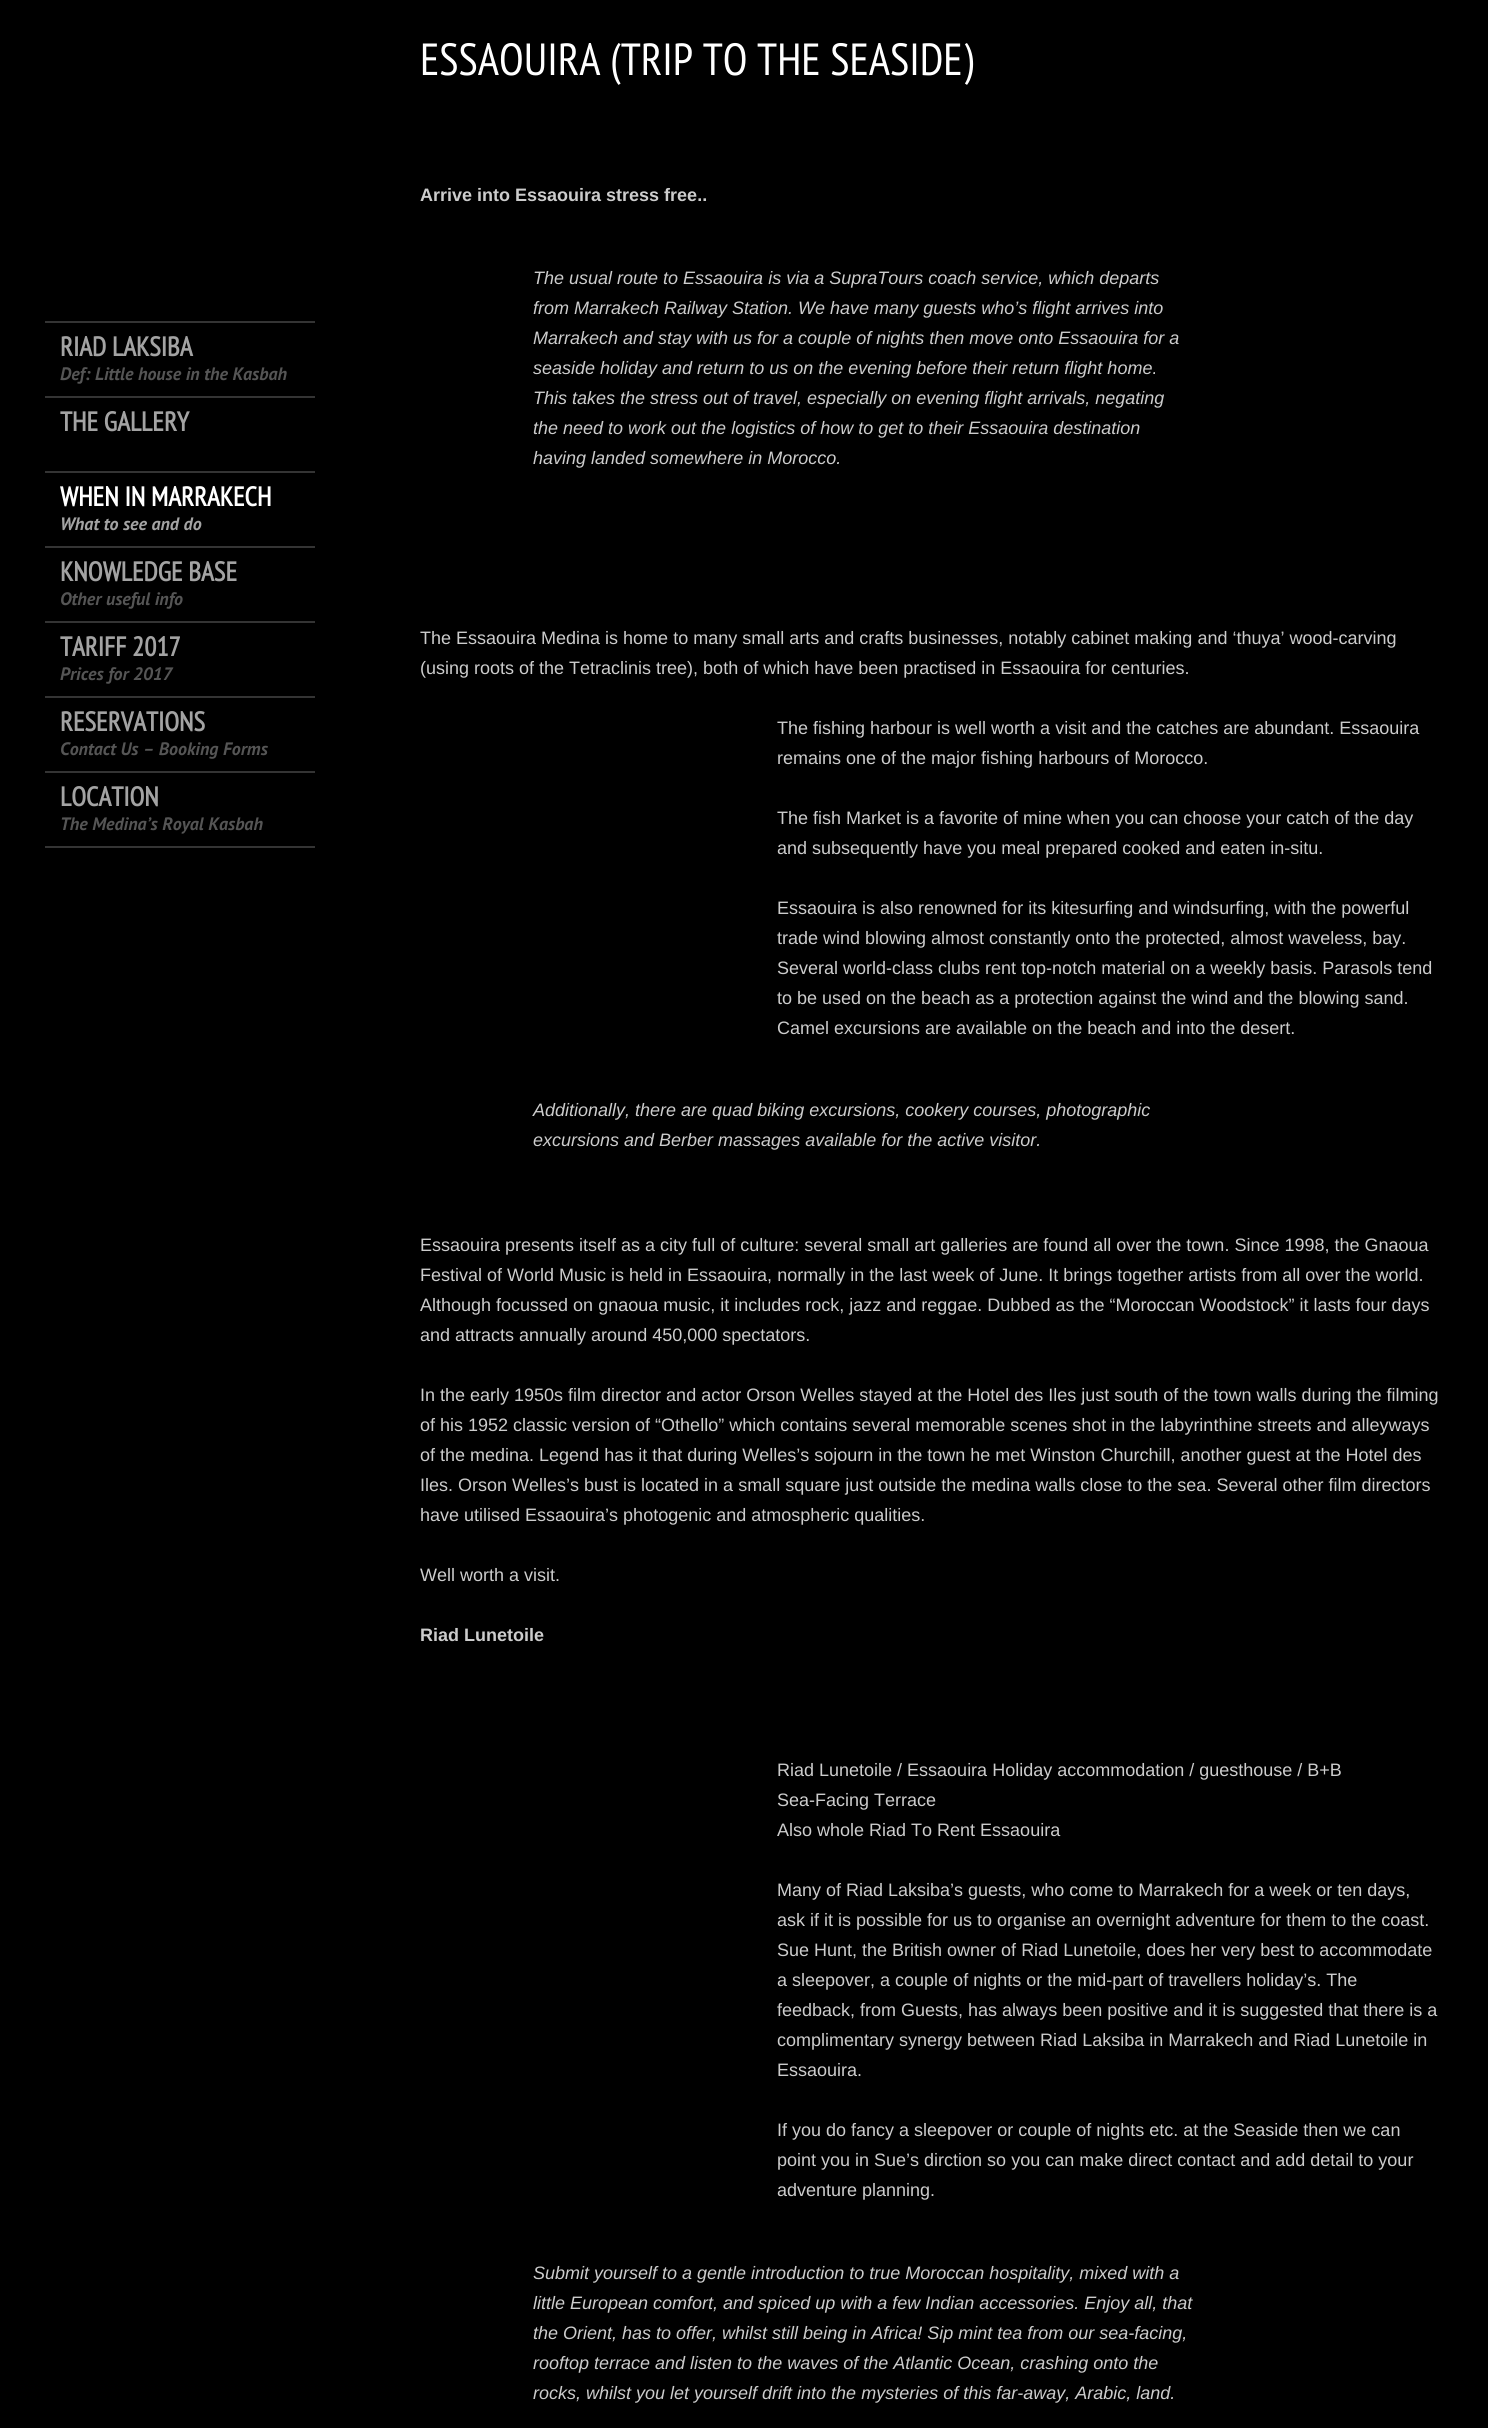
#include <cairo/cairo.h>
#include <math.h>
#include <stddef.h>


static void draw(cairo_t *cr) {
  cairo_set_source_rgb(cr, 0, 0, 0);
  cairo_paint(cr);
  cairo_set_source_rgb(cr, 52 / 255.0, 52 / 255.0, 52 / 255.0);
  cairo_rectangle(cr, 45, 321, 270, 2);
  cairo_fill(cr);
  cairo_rectangle(cr, 45, 396, 270, 2);
  cairo_fill(cr);
  cairo_rectangle(cr, 45, 471, 270, 2);
  cairo_fill(cr);
  cairo_rectangle(cr, 45, 546, 270, 2);
  cairo_fill(cr);
  cairo_rectangle(cr, 45, 621, 270, 2);
  cairo_fill(cr);
  cairo_rectangle(cr, 45, 696, 270, 2);
  cairo_fill(cr);
  cairo_rectangle(cr, 45, 771, 270, 2);
  cairo_fill(cr);
  cairo_rectangle(cr, 45, 846, 270, 2);
  cairo_fill(cr);
  cairo_select_font_face(cr, "PT Sans Narrow", CAIRO_FONT_SLANT_NORMAL, CAIRO_FONT_WEIGHT_BOLD);
  cairo_set_font_size(cr, 27);
  cairo_set_source_rgb(cr, 163 / 255.0, 163 / 255.0, 163 / 255.0);
  cairo_move_to(cr, 60, 356);
  cairo_show_text(cr, "RIAD LAKSIBA");
  cairo_select_font_face(cr, "PT Sans", CAIRO_FONT_SLANT_ITALIC, CAIRO_FONT_WEIGHT_BOLD);
  cairo_set_font_size(cr, 18);
  cairo_set_source_rgb(cr, 85 / 255.0, 85 / 255.0, 85 / 255.0);
  cairo_move_to(cr, 60, 380);
  cairo_show_text(cr, "Def: Little house in the Kasbah");
  cairo_select_font_face(cr, "PT Sans Narrow", CAIRO_FONT_SLANT_NORMAL, CAIRO_FONT_WEIGHT_BOLD);
  cairo_set_font_size(cr, 27);
  cairo_set_source_rgb(cr, 163 / 255.0, 163 / 255.0, 163 / 255.0);
  cairo_move_to(cr, 60, 431);
  cairo_show_text(cr, "THE GALLERY");
  cairo_set_source_rgb(cr, 1, 1, 1);
  cairo_move_to(cr, 60, 506);
  cairo_show_text(cr, "WHEN IN MARRAKECH");
  cairo_select_font_face(cr, "PT Sans", CAIRO_FONT_SLANT_ITALIC, CAIRO_FONT_WEIGHT_BOLD);
  cairo_set_font_size(cr, 18);
  cairo_set_source_rgb(cr, 163 / 255.0, 163 / 255.0, 163 / 255.0);
  cairo_move_to(cr, 60, 530);
  cairo_show_text(cr, "What to see and do");
  cairo_select_font_face(cr, "PT Sans Narrow", CAIRO_FONT_SLANT_NORMAL, CAIRO_FONT_WEIGHT_BOLD);
  cairo_set_font_size(cr, 27);
  cairo_move_to(cr, 60, 581);
  cairo_show_text(cr, "KNOWLEDGE BASE");
  cairo_select_font_face(cr, "PT Sans", CAIRO_FONT_SLANT_ITALIC, CAIRO_FONT_WEIGHT_BOLD);
  cairo_set_font_size(cr, 18);
  cairo_set_source_rgb(cr, 85 / 255.0, 85 / 255.0, 85 / 255.0);
  cairo_move_to(cr, 60, 605);
  cairo_show_text(cr, "Other useful info");
  cairo_select_font_face(cr, "PT Sans Narrow", CAIRO_FONT_SLANT_NORMAL, CAIRO_FONT_WEIGHT_BOLD);
  cairo_set_font_size(cr, 27);
  cairo_set_source_rgb(cr, 163 / 255.0, 163 / 255.0, 163 / 255.0);
  cairo_move_to(cr, 60, 656);
  cairo_show_text(cr, "TARIFF 2017");
  cairo_select_font_face(cr, "PT Sans", CAIRO_FONT_SLANT_ITALIC, CAIRO_FONT_WEIGHT_BOLD);
  cairo_set_font_size(cr, 18);
  cairo_set_source_rgb(cr, 85 / 255.0, 85 / 255.0, 85 / 255.0);
  cairo_move_to(cr, 60, 680);
  cairo_show_text(cr, "Prices for 2017");
  cairo_select_font_face(cr, "PT Sans Narrow", CAIRO_FONT_SLANT_NORMAL, CAIRO_FONT_WEIGHT_BOLD);
  cairo_set_font_size(cr, 27);
  cairo_set_source_rgb(cr, 163 / 255.0, 163 / 255.0, 163 / 255.0);
  cairo_move_to(cr, 60, 731);
  cairo_show_text(cr, "RESERVATIONS");
  cairo_select_font_face(cr, "PT Sans", CAIRO_FONT_SLANT_ITALIC, CAIRO_FONT_WEIGHT_BOLD);
  cairo_set_font_size(cr, 18);
  cairo_set_source_rgb(cr, 85 / 255.0, 85 / 255.0, 85 / 255.0);
  cairo_move_to(cr, 60, 755);
  cairo_show_text(cr, "Contact Us – Booking Forms");
  cairo_select_font_face(cr, "PT Sans Narrow", CAIRO_FONT_SLANT_NORMAL, CAIRO_FONT_WEIGHT_BOLD);
  cairo_set_font_size(cr, 27);
  cairo_set_source_rgb(cr, 163 / 255.0, 163 / 255.0, 163 / 255.0);
  cairo_move_to(cr, 60, 806);
  cairo_show_text(cr, "LOCATION");
  cairo_select_font_face(cr, "PT Sans", CAIRO_FONT_SLANT_ITALIC, CAIRO_FONT_WEIGHT_BOLD);
  cairo_set_font_size(cr, 18);
  cairo_set_source_rgb(cr, 85 / 255.0, 85 / 255.0, 85 / 255.0);
  cairo_move_to(cr, 60, 830);
  cairo_show_text(cr, "The Medina’s Royal Kasbah");
  cairo_select_font_face(cr, "PT Sans Narrow", CAIRO_FONT_SLANT_NORMAL, CAIRO_FONT_WEIGHT_NORMAL);
  cairo_set_font_size(cr, 45);
  cairo_set_source_rgb(cr, 1, 1, 1);
  cairo_move_to(cr, 420, 75);
  cairo_show_text(cr, "ESSAOUIRA (TRIP TO THE SEASIDE)");
  cairo_select_font_face(cr, "Liberation Sans", CAIRO_FONT_SLANT_NORMAL, CAIRO_FONT_WEIGHT_BOLD);
  cairo_set_font_size(cr, 18);
  cairo_set_source_rgb(cr, 204 / 255.0, 204 / 255.0, 204 / 255.0);
  cairo_move_to(cr, 420, 201);
  cairo_show_text(cr, "Arrive into Essaouira stress free..");
  cairo_select_font_face(cr, "Liberation Sans", CAIRO_FONT_SLANT_ITALIC, CAIRO_FONT_WEIGHT_NORMAL);
  cairo_move_to(cr, 533, 284);
  cairo_show_text(cr, "The usual route to Essaouira is via a SupraTours coach service, which departs");
  cairo_move_to(cr, 533, 314);
  cairo_show_text(cr, "from Marrakech Railway Station. We have many guests who’s flight arrives into");
  cairo_move_to(cr, 533, 344);
  cairo_show_text(cr, "Marrakech and stay with us for a couple of nights then move onto Essaouira for a");
  cairo_move_to(cr, 533, 374);
  cairo_show_text(cr, "seaside holiday and return to us on the evening before their return flight home.");
  cairo_move_to(cr, 533, 404);
  cairo_show_text(cr, "This takes the stress out of travel, especially on evening flight arrivals, negating");
  cairo_move_to(cr, 533, 434);
  cairo_show_text(cr, "the need to work out the logistics of how to get to their Essaouira destination");
  cairo_move_to(cr, 533, 464);
  cairo_show_text(cr, "having landed somewhere in Morocco.");
  cairo_select_font_face(cr, "Liberation Sans", CAIRO_FONT_SLANT_NORMAL, CAIRO_FONT_WEIGHT_NORMAL);
  cairo_move_to(cr, 420, 644);
  cairo_show_text(cr, "The Essaouira Medina is home to many small arts and crafts businesses, notably cabinet making and ‘thuya’ wood-carving");
  cairo_move_to(cr, 420, 674);
  cairo_show_text(cr, "(using roots of the Tetraclinis tree), both of which have been practised in Essaouira for centuries.");
  cairo_move_to(cr, 777, 734);
  cairo_show_text(cr, "The fishing harbour is well worth a visit and the catches are abundant. Essaouira");
  cairo_move_to(cr, 777, 764);
  cairo_show_text(cr, "remains one of the major fishing harbours of Morocco.");
  cairo_move_to(cr, 777, 824);
  cairo_show_text(cr, "The fish Market is a favorite of mine when you can choose your catch of the day");
  cairo_move_to(cr, 777, 854);
  cairo_show_text(cr, "and subsequently have you meal prepared cooked and eaten in-situ.");
  cairo_move_to(cr, 777, 914);
  cairo_show_text(cr, "Essaouira is also renowned for its kitesurfing and windsurfing, with the powerful");
  cairo_move_to(cr, 777, 944);
  cairo_show_text(cr, "trade wind blowing almost constantly onto the protected, almost waveless, bay.");
  cairo_move_to(cr, 777, 974);
  cairo_show_text(cr, "Several world-class clubs rent top-notch material on a weekly basis. Parasols tend");
  cairo_move_to(cr, 777, 1004);
  cairo_show_text(cr, "to be used on the beach as a protection against the wind and the blowing sand.");
  cairo_move_to(cr, 777, 1034);
  cairo_show_text(cr, "Camel excursions are available on the beach and into the desert.");
  cairo_select_font_face(cr, "Liberation Sans", CAIRO_FONT_SLANT_ITALIC, CAIRO_FONT_WEIGHT_NORMAL);
  cairo_move_to(cr, 533, 1116);
  cairo_show_text(cr, "Additionally, there are quad biking excursions, cookery courses, photographic");
  cairo_move_to(cr, 533, 1146);
  cairo_show_text(cr, "excursions and Berber massages available for the active visitor.");
  cairo_select_font_face(cr, "Liberation Sans", CAIRO_FONT_SLANT_NORMAL, CAIRO_FONT_WEIGHT_NORMAL);
  cairo_move_to(cr, 420, 1251);
  cairo_show_text(cr, "Essaouira presents itself as a city full of culture: several small art galleries are found all over the town. Since 1998, the Gnaoua");
  cairo_move_to(cr, 420, 1281);
  cairo_show_text(cr, "Festival of World Music is held in Essaouira, normally in the last week of June. It brings together artists from all over the world.");
  cairo_move_to(cr, 420, 1311);
  cairo_show_text(cr, "Although focussed on gnaoua music, it includes rock, jazz and reggae. Dubbed as the “Moroccan Woodstock” it lasts four days");
  cairo_move_to(cr, 420, 1341);
  cairo_show_text(cr, "and attracts annually around 450,000 spectators.");
  cairo_move_to(cr, 420, 1401);
  cairo_show_text(cr, "In the early 1950s film director and actor Orson Welles stayed at the Hotel des Iles just south of the town walls during the filming");
  cairo_move_to(cr, 420, 1431);
  cairo_show_text(cr, "of his 1952 classic version of “Othello” which contains several memorable scenes shot in the labyrinthine streets and alleyways");
  cairo_move_to(cr, 420, 1461);
  cairo_show_text(cr, "of the medina. Legend has it that during Welles’s sojourn in the town he met Winston Churchill, another guest at the Hotel des");
  cairo_move_to(cr, 420, 1491);
  cairo_show_text(cr, "Iles. Orson Welles’s bust is located in a small square just outside the medina walls close to the sea. Several other film directors");
  cairo_move_to(cr, 420, 1521);
  cairo_show_text(cr, "have utilised Essaouira’s photogenic and atmospheric qualities.");
  cairo_move_to(cr, 420, 1581);
  cairo_show_text(cr, "Well worth a visit.");
  cairo_select_font_face(cr, "Liberation Sans", CAIRO_FONT_SLANT_NORMAL, CAIRO_FONT_WEIGHT_BOLD);
  cairo_move_to(cr, 420, 1641);
  cairo_show_text(cr, "Riad Lunetoile");
  cairo_select_font_face(cr, "Liberation Sans", CAIRO_FONT_SLANT_NORMAL, CAIRO_FONT_WEIGHT_NORMAL);
  cairo_move_to(cr, 777, 1776);
  cairo_show_text(cr, "Riad Lunetoile / Essaouira Holiday accommodation / guesthouse / B+B");
  cairo_move_to(cr, 777, 1806);
  cairo_show_text(cr, "Sea-Facing Terrace");
  cairo_move_to(cr, 777, 1836);
  cairo_show_text(cr, "Also whole Riad To Rent Essaouira");
  cairo_move_to(cr, 777, 1896);
  cairo_show_text(cr, "Many of Riad Laksiba’s guests, who come to Marrakech for a week or ten days,");
  cairo_move_to(cr, 777, 1926);
  cairo_show_text(cr, "ask if it is possible for us to organise an overnight adventure for them to the coast.");
  cairo_move_to(cr, 777, 1956);
  cairo_show_text(cr, "Sue Hunt, the British owner of Riad Lunetoile, does her very best to accommodate");
  cairo_move_to(cr, 777, 1986);
  cairo_show_text(cr, "a sleepover, a couple of nights or the mid-part of travellers holiday’s. The");
  cairo_move_to(cr, 777, 2016);
  cairo_show_text(cr, "feedback, from Guests, has always been positive and it is suggested that there is a");
  cairo_move_to(cr, 777, 2046);
  cairo_show_text(cr, "complimentary synergy between Riad Laksiba in Marrakech and Riad Lunetoile in");
  cairo_move_to(cr, 777, 2076);
  cairo_show_text(cr, "Essaouira.");
  cairo_move_to(cr, 777, 2136);
  cairo_show_text(cr, "If you do fancy a sleepover or couple of nights etc. at the Seaside then we can");
  cairo_move_to(cr, 777, 2166);
  cairo_show_text(cr, "point you in Sue’s dirction so you can make direct contact and add detail to your");
  cairo_move_to(cr, 777, 2196);
  cairo_show_text(cr, "adventure planning.");
  cairo_select_font_face(cr, "Liberation Sans", CAIRO_FONT_SLANT_ITALIC, CAIRO_FONT_WEIGHT_NORMAL);
  cairo_move_to(cr, 533, 2279);
  cairo_show_text(cr, "Submit yourself to a gentle introduction to true Moroccan hospitality, mixed with a");
  cairo_move_to(cr, 533, 2309);
  cairo_show_text(cr, "little European comfort, and spiced up with a few Indian accessories. Enjoy all, that");
  cairo_move_to(cr, 533, 2339);
  cairo_show_text(cr, "the Orient, has to offer, whilst still being in Africa! Sip mint tea from our sea-facing,");
  cairo_move_to(cr, 533, 2369);
  cairo_show_text(cr, "rooftop terrace and listen to the waves of the Atlantic Ocean, crashing onto the");
  cairo_move_to(cr, 533, 2399);
  cairo_show_text(cr, "rocks, whilst you let yourself drift into the mysteries of this far-away, Arabic, land.");
}

int main(void) {
  cairo_surface_t *surface = cairo_image_surface_create(CAIRO_FORMAT_RGB24, 1488, 2428);
  cairo_t *cr = cairo_create(surface);
  cairo_font_options_t *options = cairo_font_options_create();
  cairo_font_options_set_hint_metrics(options, CAIRO_HINT_METRICS_OFF);
  cairo_font_options_set_hint_style(options, CAIRO_HINT_STYLE_NONE);
  cairo_set_font_options(cr, options);
  cairo_set_miter_limit(cr, 4);
  draw(cr);
  cairo_surface_write_to_png(surface, "out.png");
  cairo_font_options_destroy(options);
  cairo_destroy(cr);
  cairo_surface_destroy(surface);
  return 0;
}
